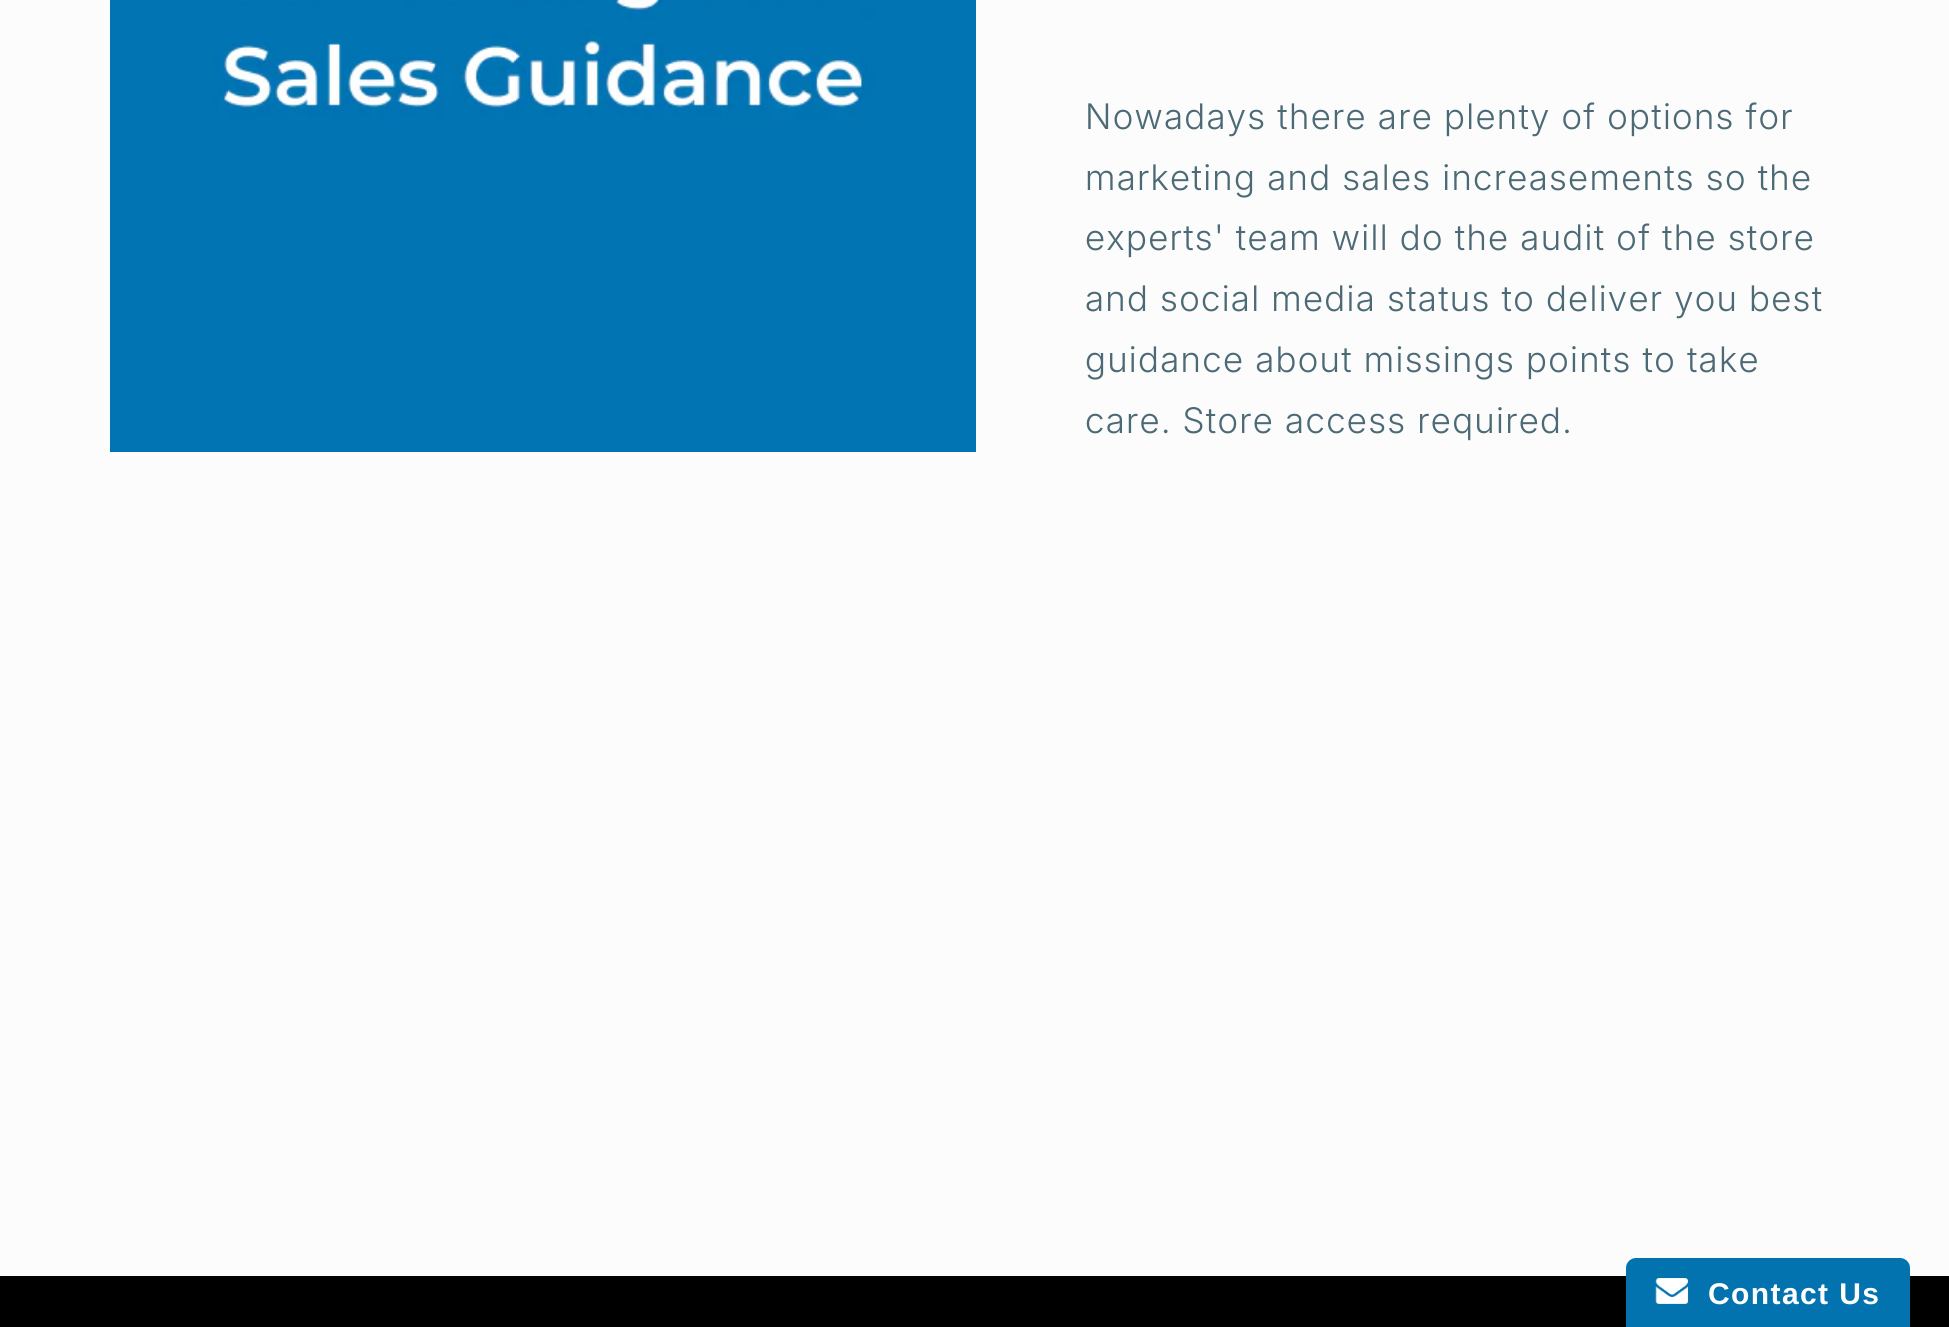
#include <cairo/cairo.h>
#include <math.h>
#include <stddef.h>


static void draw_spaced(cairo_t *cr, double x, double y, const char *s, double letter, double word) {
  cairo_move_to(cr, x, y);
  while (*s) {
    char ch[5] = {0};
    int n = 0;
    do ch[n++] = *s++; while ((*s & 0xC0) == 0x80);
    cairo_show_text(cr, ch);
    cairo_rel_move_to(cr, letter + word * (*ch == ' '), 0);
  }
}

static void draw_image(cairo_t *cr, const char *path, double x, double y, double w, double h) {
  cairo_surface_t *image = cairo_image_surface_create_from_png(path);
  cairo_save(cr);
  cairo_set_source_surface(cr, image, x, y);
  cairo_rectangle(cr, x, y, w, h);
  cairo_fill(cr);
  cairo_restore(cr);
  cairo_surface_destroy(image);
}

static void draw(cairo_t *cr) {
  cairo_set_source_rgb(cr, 252 / 255.0, 252 / 255.0, 252 / 255.0);
  cairo_paint(cr);
  draw_image(cr, "images/1.png", 110, 0, 866, 452);
  cairo_set_source_rgb(cr, 0, 0, 0);
  cairo_rectangle(cr, 0, 1276, 1949, 51);
  cairo_fill(cr);
  cairo_set_source_rgb(cr, 3 / 255.0, 115 / 255.0, 175 / 255.0);
  cairo_new_path(cr);
  cairo_move_to(cr, 1636, 1258);
  cairo_line_to(cr, 1900, 1258);
  cairo_curve_to(cr, 1905.5, 1258, 1910, 1262.5, 1910, 1268);
  cairo_line_to(cr, 1910, 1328);
  cairo_line_to(cr, 1626, 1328);
  cairo_line_to(cr, 1626, 1268);
  cairo_curve_to(cr, 1626, 1262.5, 1630.5, 1258, 1636, 1258);
  cairo_close_path(cr);
  cairo_fill(cr);
  draw_image(cr, "images/2.png", 1655, 1278, 34, 26);
  cairo_select_font_face(cr, "Inter Light", CAIRO_FONT_SLANT_NORMAL, CAIRO_FONT_WEIGHT_NORMAL);
  cairo_set_font_size(cr, 35.2);
  cairo_set_source_rgb(cr, 75 / 255.0, 106 / 255.0, 117 / 255.0);
  draw_spaced(cr, 1085, 129, "Nowadays there are plenty of options for", 1.3, 0);
  draw_spaced(cr, 1085, 190, "marketing and sales increasements so the", 1.3, 0);
  draw_spaced(cr, 1085, 250, "experts' team will do the audit of the store", 1.3, 0);
  draw_spaced(cr, 1085, 311, "and social media status to deliver you best", 1.3, 0);
  draw_spaced(cr, 1085, 372, "guidance about missings points to take", 1.3, 0);
  draw_spaced(cr, 1085, 433, "care. Store access required.", 1.3, 0);
  cairo_select_font_face(cr, "Liberation Sans", CAIRO_FONT_SLANT_NORMAL, CAIRO_FONT_WEIGHT_BOLD);
  cairo_set_font_size(cr, 30);
  cairo_set_source_rgb(cr, 1, 1, 1);
  draw_spaced(cr, 1708, 1304, "Contact Us", 1.4, 0);
}

int main(void) {
  cairo_surface_t *surface = cairo_image_surface_create(CAIRO_FORMAT_RGB24, 1949, 1327);
  cairo_t *cr = cairo_create(surface);
  cairo_font_options_t *options = cairo_font_options_create();
  cairo_font_options_set_hint_metrics(options, CAIRO_HINT_METRICS_OFF);
  cairo_font_options_set_hint_style(options, CAIRO_HINT_STYLE_NONE);
  cairo_set_font_options(cr, options);
  cairo_set_miter_limit(cr, 4);
  draw(cr);
  cairo_surface_write_to_png(surface, "out.png");
  cairo_font_options_destroy(options);
  cairo_destroy(cr);
  cairo_surface_destroy(surface);
  return 0;
}
